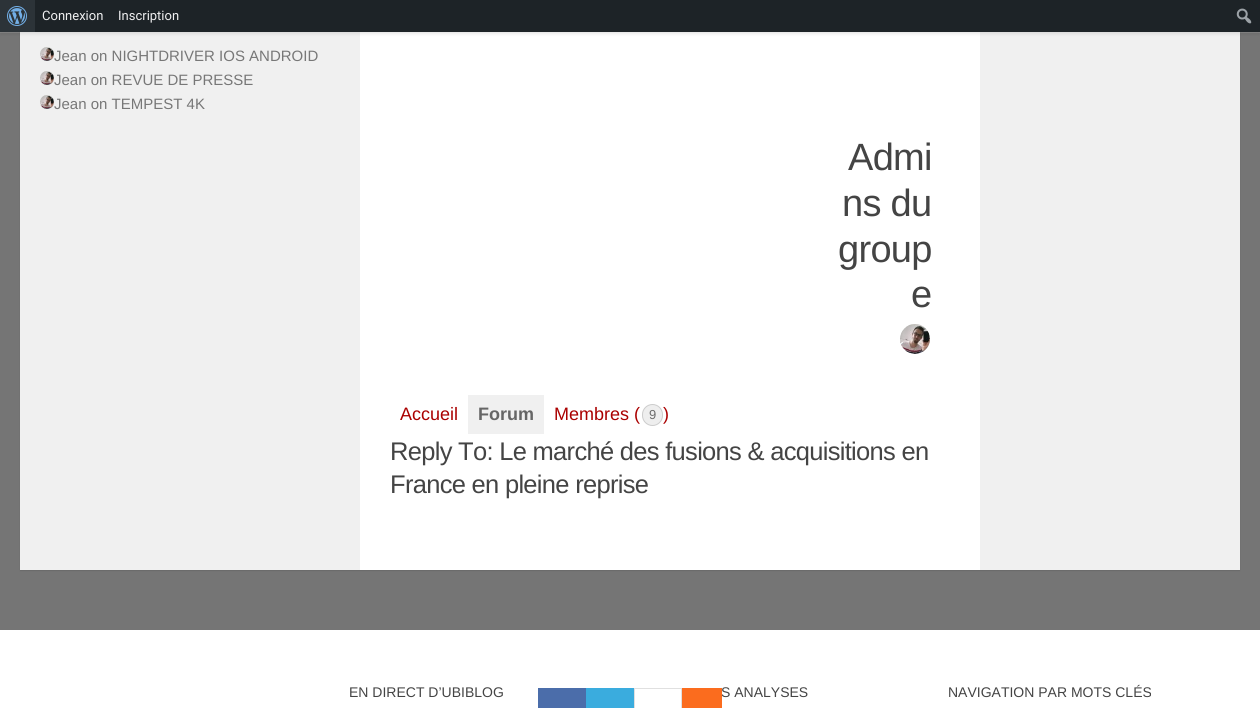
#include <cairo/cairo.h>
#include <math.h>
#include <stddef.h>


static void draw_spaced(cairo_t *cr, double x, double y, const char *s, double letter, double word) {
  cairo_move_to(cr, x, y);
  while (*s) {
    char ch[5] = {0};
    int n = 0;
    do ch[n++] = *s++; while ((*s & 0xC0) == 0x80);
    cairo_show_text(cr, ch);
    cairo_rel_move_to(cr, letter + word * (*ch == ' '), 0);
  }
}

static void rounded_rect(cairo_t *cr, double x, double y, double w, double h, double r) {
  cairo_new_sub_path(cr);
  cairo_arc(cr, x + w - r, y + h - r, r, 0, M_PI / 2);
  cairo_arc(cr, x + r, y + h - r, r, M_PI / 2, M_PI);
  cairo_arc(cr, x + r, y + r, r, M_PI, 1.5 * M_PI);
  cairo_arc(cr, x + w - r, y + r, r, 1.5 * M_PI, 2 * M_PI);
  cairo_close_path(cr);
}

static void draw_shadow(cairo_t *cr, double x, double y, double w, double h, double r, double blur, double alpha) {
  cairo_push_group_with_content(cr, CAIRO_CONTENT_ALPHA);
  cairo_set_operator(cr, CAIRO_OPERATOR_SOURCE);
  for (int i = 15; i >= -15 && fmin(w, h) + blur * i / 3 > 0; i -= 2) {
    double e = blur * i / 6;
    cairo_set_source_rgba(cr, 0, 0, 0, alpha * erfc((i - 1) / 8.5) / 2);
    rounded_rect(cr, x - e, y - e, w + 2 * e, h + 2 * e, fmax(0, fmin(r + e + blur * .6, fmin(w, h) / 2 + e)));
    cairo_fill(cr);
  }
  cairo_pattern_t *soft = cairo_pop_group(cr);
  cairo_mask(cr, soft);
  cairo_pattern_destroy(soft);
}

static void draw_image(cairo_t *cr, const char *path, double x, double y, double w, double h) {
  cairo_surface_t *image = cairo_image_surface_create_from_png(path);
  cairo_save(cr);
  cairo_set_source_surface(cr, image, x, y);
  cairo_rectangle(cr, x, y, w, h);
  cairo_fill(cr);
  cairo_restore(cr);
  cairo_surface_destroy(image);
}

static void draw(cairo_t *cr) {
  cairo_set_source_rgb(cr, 117 / 255.0, 117 / 255.0, 117 / 255.0);
  cairo_paint(cr);
  cairo_set_source_rgb(cr, 0, 0, 0);
  draw_shadow(cr, 20, -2, 1220, 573, 0, 0.5, 0.1);
  cairo_set_source_rgb(cr, 1, 1, 1);
  cairo_rectangle(cr, 360, 32, 620, 538);
  cairo_fill(cr);
  cairo_set_source_rgb(cr, 240 / 255.0, 240 / 255.0, 240 / 255.0);
  cairo_rectangle(cr, 20, 32, 340, 538);
  cairo_fill(cr);
  cairo_rectangle(cr, 980, 32, 260, 538);
  cairo_fill(cr);
  cairo_set_source_rgba(cr, 1, 1, 1, 0.15);
  cairo_rectangle(cr, 0, 32, 1260, 1);
  cairo_fill(cr);
  cairo_set_source_rgb(cr, 0, 0, 0);
  draw_shadow(cr, 0, -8, 1260, 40, 0, 2.5, 0.2);
  cairo_set_source_rgb(cr, 29 / 255.0, 35 / 255.0, 39 / 255.0);
  cairo_rectangle(cr, 35, 0, 1225, 32);
  cairo_fill(cr);
  cairo_set_source_rgb(cr, 44 / 255.0, 51 / 255.0, 56 / 255.0);
  cairo_rectangle(cr, 0, 0, 35, 32);
  cairo_fill(cr);
  draw_image(cr, "images/1.png", 7, 6, 20, 20);
  draw_image(cr, "images/2.png", 1236, 8, 16, 16);
  draw_image(cr, "images/3.png", 40, 47, 14, 14);
  draw_image(cr, "images/3.png", 40, 71, 14, 14);
  draw_image(cr, "images/3.png", 40, 95, 14, 14);
  draw_image(cr, "images/4.png", 900, 324, 30, 30);
  cairo_set_source_rgb(cr, 240 / 255.0, 240 / 255.0, 240 / 255.0);
  cairo_rectangle(cr, 468, 395, 76, 39);
  cairo_fill(cr);
  cairo_set_source_rgb(cr, 238 / 255.0, 238 / 255.0, 238 / 255.0);
  rounded_rect(cr, 642.5, 404.5, 20, 21, 10);
  cairo_fill_preserve(cr);
  cairo_set_source_rgb(cr, 204 / 255.0, 204 / 255.0, 204 / 255.0);
  cairo_set_line_width(cr, 1);
  cairo_stroke(cr);
  cairo_set_source_rgb(cr, 1, 1, 1);
  cairo_rectangle(cr, 0, 630, 1260, 78);
  cairo_fill(cr);
  cairo_set_source_rgb(cr, 75 / 255.0, 109 / 255.0, 170 / 255.0);
  cairo_rectangle(cr, 538, 688, 48, 20);
  cairo_fill(cr);
  cairo_set_source_rgb(cr, 58 / 255.0, 172 / 255.0, 222 / 255.0);
  cairo_rectangle(cr, 586, 688, 48, 20);
  cairo_fill(cr);
  cairo_set_source_rgb(cr, 224 / 255.0, 224 / 255.0, 224 / 255.0);
  cairo_rectangle(cr, 634, 688, 48, 1);
  cairo_fill(cr);
  cairo_rectangle(cr, 681, 688, 1, 20);
  cairo_fill(cr);
  cairo_rectangle(cr, 634, 688, 1, 20);
  cairo_fill(cr);
  cairo_select_font_face(cr, "Roboto", CAIRO_FONT_SLANT_NORMAL, CAIRO_FONT_WEIGHT_NORMAL);
  cairo_set_font_size(cr, 13);
  cairo_set_source_rgb(cr, 240 / 255.0, 240 / 255.0, 241 / 255.0);
  cairo_move_to(cr, 42, 20);
  cairo_show_text(cr, "Connexion");
  cairo_move_to(cr, 118, 20);
  cairo_show_text(cr, "Inscription");
  cairo_select_font_face(cr, "Liberation Sans", CAIRO_FONT_SLANT_NORMAL, CAIRO_FONT_WEIGHT_NORMAL);
  cairo_set_font_size(cr, 15);
  cairo_set_source_rgb(cr, 119 / 255.0, 119 / 255.0, 119 / 255.0);
  cairo_move_to(cr, 54, 61);
  cairo_show_text(cr, "Jean on NIGHTDRIVER IOS ANDROID");
  cairo_move_to(cr, 54, 85);
  cairo_show_text(cr, "Jean on REVUE DE PRESSE");
  cairo_move_to(cr, 54, 109);
  cairo_show_text(cr, "Jean on TEMPEST 4K");
  cairo_set_font_size(cr, 38);
  cairo_set_source_rgb(cr, 68 / 255.0, 68 / 255.0, 68 / 255.0);
  draw_spaced(cr, 848, 170, "Admi", -0.7, 0);
  draw_spaced(cr, 842, 216, "ns du", -0.7, 0);
  draw_spaced(cr, 838, 262, "group", -0.7, 0);
  draw_spaced(cr, 911, 307, "e", -0.7, 0);
  cairo_set_font_size(cr, 18);
  cairo_set_source_rgb(cr, 170 / 255.0, 0, 0);
  cairo_move_to(cr, 400, 420);
  cairo_show_text(cr, "Accueil");
  cairo_select_font_face(cr, "Liberation Sans", CAIRO_FONT_SLANT_NORMAL, CAIRO_FONT_WEIGHT_BOLD);
  cairo_set_source_rgb(cr, 102 / 255.0, 102 / 255.0, 102 / 255.0);
  cairo_move_to(cr, 478, 420);
  cairo_show_text(cr, "Forum");
  cairo_select_font_face(cr, "Liberation Sans", CAIRO_FONT_SLANT_NORMAL, CAIRO_FONT_WEIGHT_NORMAL);
  cairo_set_source_rgb(cr, 170 / 255.0, 0, 0);
  cairo_move_to(cr, 554, 420);
  cairo_show_text(cr, "Membres (");
  cairo_set_font_size(cr, 13);
  cairo_set_source_rgb(cr, 108 / 255.0, 108 / 255.0, 108 / 255.0);
  cairo_move_to(cr, 649, 419);
  cairo_show_text(cr, "9");
  cairo_set_font_size(cr, 18);
  cairo_set_source_rgb(cr, 170 / 255.0, 0, 0);
  cairo_move_to(cr, 663, 420);
  cairo_show_text(cr, ")");
  cairo_set_font_size(cr, 25.5);
  cairo_set_source_rgb(cr, 68 / 255.0, 68 / 255.0, 68 / 255.0);
  draw_spaced(cr, 390, 460, "Reply To: Le marché des fusions & acquisitions en", -0.7, 0);
  draw_spaced(cr, 390, 493, "France en pleine reprise", -0.7, 0);
  cairo_set_font_size(cr, 14);
  cairo_move_to(cr, 349, 697);
  cairo_show_text(cr, "EN DIRECT D’UBIBLOG");
  cairo_move_to(cr, 721, 697);
  cairo_show_text(cr, "S ANALYSES");
  cairo_move_to(cr, 948, 697);
  cairo_show_text(cr, "NAVIGATION PAR MOTS CLÉS");
  cairo_set_source_rgb(cr, 251 / 255.0, 108 / 255.0, 30 / 255.0);
  cairo_rectangle(cr, 682, 688, 40, 20);
  cairo_fill(cr);
}

int main(void) {
  cairo_surface_t *surface = cairo_image_surface_create(CAIRO_FORMAT_RGB24, 1260, 708);
  cairo_t *cr = cairo_create(surface);
  cairo_font_options_t *options = cairo_font_options_create();
  cairo_font_options_set_hint_metrics(options, CAIRO_HINT_METRICS_OFF);
  cairo_font_options_set_hint_style(options, CAIRO_HINT_STYLE_NONE);
  cairo_set_font_options(cr, options);
  cairo_set_miter_limit(cr, 4);
  draw(cr);
  cairo_surface_write_to_png(surface, "out.png");
  cairo_font_options_destroy(options);
  cairo_destroy(cr);
  cairo_surface_destroy(surface);
  return 0;
}
